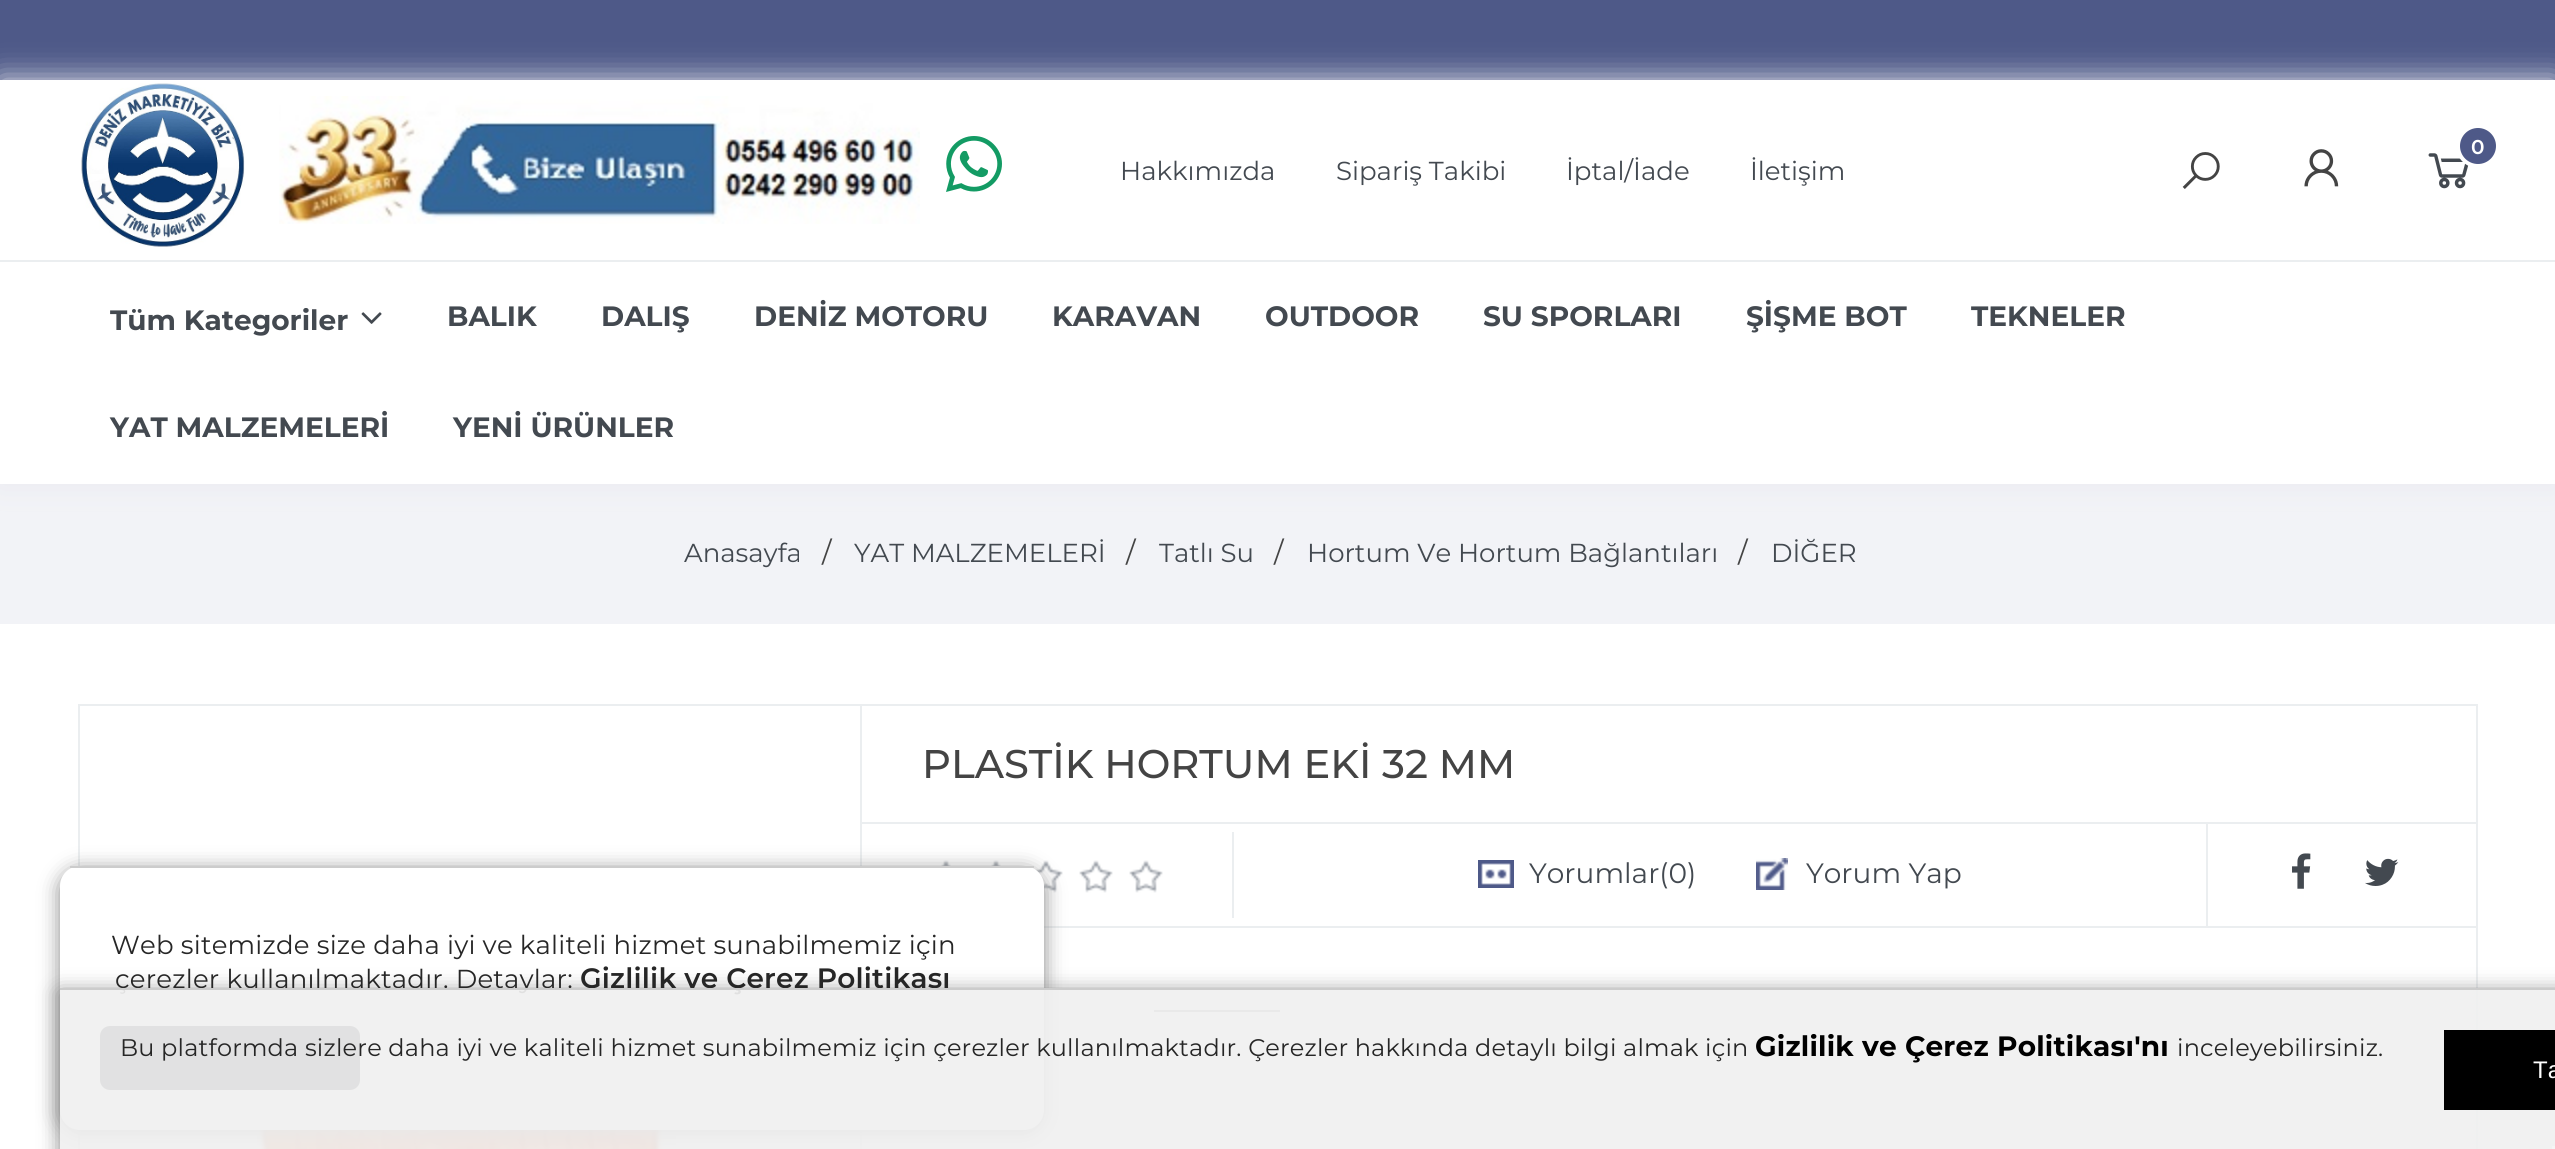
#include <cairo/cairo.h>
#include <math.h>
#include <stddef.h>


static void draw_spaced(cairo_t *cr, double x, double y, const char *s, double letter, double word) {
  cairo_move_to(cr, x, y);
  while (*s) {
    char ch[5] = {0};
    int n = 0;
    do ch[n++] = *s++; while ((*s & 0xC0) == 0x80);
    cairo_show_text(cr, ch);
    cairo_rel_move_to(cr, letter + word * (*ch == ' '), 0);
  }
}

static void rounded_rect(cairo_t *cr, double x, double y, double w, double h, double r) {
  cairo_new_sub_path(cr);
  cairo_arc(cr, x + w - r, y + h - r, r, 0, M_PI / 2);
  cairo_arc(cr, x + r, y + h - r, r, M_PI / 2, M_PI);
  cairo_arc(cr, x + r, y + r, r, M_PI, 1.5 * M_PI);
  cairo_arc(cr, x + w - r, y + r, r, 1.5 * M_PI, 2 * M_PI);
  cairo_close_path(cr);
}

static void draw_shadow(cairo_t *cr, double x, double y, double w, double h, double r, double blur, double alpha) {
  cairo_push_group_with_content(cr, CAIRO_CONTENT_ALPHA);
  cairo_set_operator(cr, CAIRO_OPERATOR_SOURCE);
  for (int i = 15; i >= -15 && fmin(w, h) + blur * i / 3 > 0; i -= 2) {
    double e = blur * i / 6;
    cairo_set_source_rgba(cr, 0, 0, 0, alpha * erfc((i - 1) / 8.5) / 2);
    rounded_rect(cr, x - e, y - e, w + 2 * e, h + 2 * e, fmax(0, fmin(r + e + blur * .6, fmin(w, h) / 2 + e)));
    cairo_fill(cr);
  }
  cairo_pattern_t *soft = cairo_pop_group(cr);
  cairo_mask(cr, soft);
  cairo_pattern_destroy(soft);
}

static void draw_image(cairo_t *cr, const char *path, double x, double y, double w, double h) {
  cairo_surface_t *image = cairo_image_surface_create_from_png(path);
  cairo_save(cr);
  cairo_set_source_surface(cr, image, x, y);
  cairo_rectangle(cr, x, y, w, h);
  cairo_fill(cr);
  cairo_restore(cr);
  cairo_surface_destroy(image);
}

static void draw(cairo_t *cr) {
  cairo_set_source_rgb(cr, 1, 1, 1);
  cairo_paint(cr);
  cairo_set_source_rgb(cr, 78 / 255.0, 89 / 255.0, 136 / 255.0);
  cairo_rectangle(cr, 0, 0, 2555, 80);
  cairo_fill(cr);
  cairo_set_source_rgb(cr, 242 / 255.0, 243 / 255.0, 247 / 255.0);
  cairo_rectangle(cr, 0, 484, 2555, 140);
  cairo_fill(cr);
  cairo_save(cr);
  cairo_set_fill_rule(cr, CAIRO_FILL_RULE_EVEN_ODD);
  cairo_new_path(cr);
  cairo_move_to(cr, 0, 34);
  cairo_line_to(cr, 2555, 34);
  cairo_line_to(cr, 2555, 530);
  cairo_line_to(cr, 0, 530);
  cairo_close_path(cr);
  cairo_move_to(cr, 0, 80);
  cairo_line_to(cr, 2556, 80);
  cairo_line_to(cr, 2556, 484);
  cairo_line_to(cr, 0, 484);
  cairo_close_path(cr);
  cairo_clip(cr);
  cairo_set_source_rgb(cr, 233 / 255.0, 234 / 255.0, 239 / 255.0);
  draw_shadow(cr, 0, 80, 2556, 404, 0, 15, 1);
  cairo_restore(cr);
  draw_image(cr, "images/1.png", 81, 83, 164, 164);
  draw_image(cr, "images/2.png", 279, 96, 641, 128);
  draw_image(cr, "images/3.png", 946, 136, 56, 56);
  draw_image(cr, "images/4.png", 2428, 153, 41, 36);
  cairo_set_source_rgb(cr, 78 / 255.0, 89 / 255.0, 136 / 255.0);
  cairo_arc(cr, 2478, 146, 20, 0, 2 * M_PI);
  cairo_fill_preserve(cr);
  cairo_set_source_rgb(cr, 1, 1, 1);
  cairo_set_line_width(cr, 4);
  cairo_stroke(cr);
  draw_image(cr, "images/5.png", 2182, 152, 38, 37);
  draw_image(cr, "images/6.png", 2304, 149, 35, 38);
  cairo_set_source_rgb(cr, 235 / 255.0, 238 / 255.0, 240 / 255.0);
  cairo_rectangle(cr, 0, 260, 2555, 2);
  cairo_fill(cr);
  draw_image(cr, "images/7.png", 361, 312, 21, 12);
  cairo_rectangle(cr, 79, 705, 2398, 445);
  cairo_set_line_width(cr, 2);
  cairo_stroke(cr);
  cairo_rectangle(cr, 860, 706, 2, 443);
  cairo_fill(cr);
  draw_image(cr, "images/8.png", 257, 1130, 419, 19);
  cairo_rectangle(cr, 1044, 926, 1432, 2);
  cairo_fill(cr);
  draw_image(cr, "images/9.png", 941, 860, 222, 33);
  cairo_set_source_rgb(cr, 136 / 255.0, 136 / 255.0, 136 / 255.0);
  draw_shadow(cr, 60, 870, 984, 264, 20, 10, 1);
  cairo_set_source_rgb(cr, 1, 1, 1);
  rounded_rect(cr, 60, 866, 984, 264, 20);
  cairo_fill(cr);
  cairo_set_source_rgb(cr, 204 / 255.0, 204 / 255.0, 204 / 255.0);
  cairo_rectangle(cr, 70, 866, 964, 2);
  cairo_fill(cr);
  cairo_set_source_rgb(cr, 55 / 255.0, 57 / 255.0, 59 / 255.0);
  rounded_rect(cr, 100, 1026, 260, 64, 10);
  cairo_fill(cr);
  cairo_set_source_rgb(cr, 235 / 255.0, 238 / 255.0, 240 / 255.0);
  cairo_rectangle(cr, 862, 822, 1614, 2);
  cairo_fill(cr);
  cairo_rectangle(cr, 1232, 832, 2, 86);
  cairo_fill(cr);
  draw_image(cr, "images/10.png", 1478, 860, 36, 28);
  draw_image(cr, "images/11.png", 1756, 858, 32, 32);
  cairo_rectangle(cr, 2206, 824, 2, 102);
  cairo_fill(cr);
  draw_image(cr, "images/12.png", 2292, 853, 19, 36);
  draw_image(cr, "images/13.png", 2365, 858, 34, 28);
  cairo_set_source_rgb(cr, 153 / 255.0, 153 / 255.0, 153 / 255.0);
  cairo_rectangle(cr, 1154, 1010, 126, 2);
  cairo_fill(cr);
  cairo_save(cr);
  cairo_set_fill_rule(cr, CAIRO_FILL_RULE_EVEN_ODD);
  cairo_new_path(cr);
  cairo_move_to(cr, 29, 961);
  cairo_line_to(cr, 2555, 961);
  cairo_line_to(cr, 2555, 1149);
  cairo_line_to(cr, 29, 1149);
  cairo_close_path(cr);
  cairo_move_to(cr, 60, 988);
  cairo_line_to(cr, 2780, 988);
  cairo_line_to(cr, 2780, 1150);
  cairo_line_to(cr, 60, 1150);
  cairo_close_path(cr);
  cairo_clip(cr);
  cairo_set_source_rgb(cr, 136 / 255.0, 136 / 255.0, 136 / 255.0);
  draw_shadow(cr, 60, 992, 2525, 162, 0, 10, 1);
  cairo_restore(cr);
  cairo_select_font_face(cr, "Montserrat SemiBold", CAIRO_FONT_SLANT_NORMAL, CAIRO_FONT_WEIGHT_NORMAL);
  cairo_set_font_size(cr, 20);
  cairo_set_source_rgb(cr, 1, 1, 1);
  cairo_move_to(cr, 2471, 154);
  cairo_show_text(cr, "0");
  cairo_select_font_face(cr, "Montserrat", CAIRO_FONT_SLANT_NORMAL, CAIRO_FONT_WEIGHT_NORMAL);
  cairo_set_font_size(cr, 26);
  cairo_set_source_rgb(cr, 67 / 255.0, 73 / 255.0, 80 / 255.0);
  cairo_move_to(cr, 1120, 180);
  cairo_show_text(cr, "Hakkımızda");
  cairo_move_to(cr, 1336, 180);
  cairo_show_text(cr, "Sipariş Takibi");
  cairo_move_to(cr, 1566, 180);
  cairo_show_text(cr, "İptal/İade");
  cairo_move_to(cr, 1750, 180);
  cairo_show_text(cr, "İletişim");
  cairo_select_font_face(cr, "Montserrat", CAIRO_FONT_SLANT_NORMAL, CAIRO_FONT_WEIGHT_BOLD);
  cairo_set_font_size(cr, 28);
  cairo_move_to(cr, 110, 330);
  cairo_show_text(cr, "Tüm Kategoriler");
  cairo_move_to(cr, 447, 326);
  cairo_show_text(cr, "BALIK");
  cairo_move_to(cr, 601, 326);
  cairo_show_text(cr, "DALIŞ");
  cairo_move_to(cr, 754, 326);
  cairo_show_text(cr, "DENİZ MOTORU");
  cairo_move_to(cr, 1052, 326);
  cairo_show_text(cr, "KARAVAN");
  cairo_move_to(cr, 1265, 326);
  cairo_show_text(cr, "OUTDOOR");
  cairo_move_to(cr, 1483, 326);
  cairo_show_text(cr, "SU SPORLARI");
  cairo_move_to(cr, 1746, 326);
  cairo_show_text(cr, "ŞİŞME BOT");
  cairo_move_to(cr, 1971, 326);
  cairo_show_text(cr, "TEKNELER");
  cairo_move_to(cr, 110, 437);
  cairo_show_text(cr, "YAT MALZEMELERİ");
  cairo_move_to(cr, 453, 437);
  cairo_show_text(cr, "YENİ ÜRÜNLER");
  cairo_select_font_face(cr, "Montserrat", CAIRO_FONT_SLANT_NORMAL, CAIRO_FONT_WEIGHT_NORMAL);
  cairo_set_font_size(cr, 26);
  cairo_set_source_rgb(cr, 38 / 255.0, 38 / 255.0, 38 / 255.0);
  draw_spaced(cr, 111, 954, "Web sitemizde size daha iyi ve kaliteli hizmet sunabilmemiz için", 0.2, 0);
  draw_spaced(cr, 115, 988, "çerezler kullanılmaktadır. Detaylar:", 0.2, 0);
  cairo_select_font_face(cr, "Montserrat SemiBold", CAIRO_FONT_SLANT_NORMAL, CAIRO_FONT_WEIGHT_NORMAL);
  cairo_set_font_size(cr, 28);
  draw_spaced(cr, 580, 988, "Gizlilik ve Çerez Politikası", 0.2, 0);
  cairo_select_font_face(cr, "Montserrat", CAIRO_FONT_SLANT_NORMAL, CAIRO_FONT_WEIGHT_NORMAL);
  cairo_set_font_size(cr, 26);
  cairo_set_source_rgb(cr, 67 / 255.0, 73 / 255.0, 80 / 255.0);
  cairo_move_to(cr, 684, 562);
  cairo_show_text(cr, "Anasayfa");
  cairo_set_font_size(cr, 28);
  cairo_set_source_rgb(cr, 68 / 255.0, 68 / 255.0, 68 / 255.0);
  cairo_move_to(cr, 822, 562);
  cairo_show_text(cr, "/");
  cairo_set_font_size(cr, 26);
  cairo_set_source_rgb(cr, 67 / 255.0, 73 / 255.0, 80 / 255.0);
  cairo_move_to(cr, 854, 562);
  cairo_show_text(cr, "YAT MALZEMELERİ");
  cairo_set_font_size(cr, 28);
  cairo_set_source_rgb(cr, 68 / 255.0, 68 / 255.0, 68 / 255.0);
  cairo_move_to(cr, 1126, 562);
  cairo_show_text(cr, "/");
  cairo_set_font_size(cr, 26);
  cairo_set_source_rgb(cr, 67 / 255.0, 73 / 255.0, 80 / 255.0);
  cairo_move_to(cr, 1159, 562);
  cairo_show_text(cr, "Tatlı Su");
  cairo_set_font_size(cr, 28);
  cairo_set_source_rgb(cr, 68 / 255.0, 68 / 255.0, 68 / 255.0);
  cairo_move_to(cr, 1274, 562);
  cairo_show_text(cr, "/");
  cairo_set_font_size(cr, 26);
  cairo_set_source_rgb(cr, 67 / 255.0, 73 / 255.0, 80 / 255.0);
  cairo_move_to(cr, 1307, 562);
  cairo_show_text(cr, "Hortum Ve Hortum Bağlantıları");
  cairo_set_font_size(cr, 28);
  cairo_set_source_rgb(cr, 68 / 255.0, 68 / 255.0, 68 / 255.0);
  cairo_move_to(cr, 1738, 562);
  cairo_show_text(cr, "/");
  cairo_set_font_size(cr, 26);
  cairo_set_source_rgb(cr, 67 / 255.0, 73 / 255.0, 80 / 255.0);
  cairo_move_to(cr, 1771, 562);
  cairo_show_text(cr, "DİĞER");
  cairo_select_font_face(cr, "Montserrat Medium", CAIRO_FONT_SLANT_NORMAL, CAIRO_FONT_WEIGHT_NORMAL);
  cairo_set_font_size(cr, 40);
  cairo_set_source_rgb(cr, 68 / 255.0, 68 / 255.0, 68 / 255.0);
  cairo_move_to(cr, 922, 778);
  cairo_show_text(cr, "PLASTİK HORTUM EKİ 32 MM");
  cairo_select_font_face(cr, "Montserrat", CAIRO_FONT_SLANT_NORMAL, CAIRO_FONT_WEIGHT_NORMAL);
  cairo_set_font_size(cr, 28);
  cairo_set_source_rgb(cr, 67 / 255.0, 73 / 255.0, 80 / 255.0);
  cairo_move_to(cr, 1529, 883);
  cairo_show_text(cr, "Yorumlar(0)");
  cairo_move_to(cr, 1806, 883);
  cairo_show_text(cr, "Yorum Yap");
  cairo_set_source_rgba(cr, 240 / 255.0, 240 / 255.0, 240 / 255.0, 0.92);
  cairo_rectangle(cr, 60, 990, 2495, 159);
  cairo_fill(cr);
  cairo_set_source_rgb(cr, 204 / 255.0, 204 / 255.0, 204 / 255.0);
  cairo_rectangle(cr, 60, 988, 2495, 2);
  cairo_fill(cr);
  cairo_set_font_size(cr, 24);
  cairo_set_source_rgb(cr, 38 / 255.0, 38 / 255.0, 38 / 255.0);
  draw_spaced(cr, 120, 1056, "Bu platformda sizlere daha iyi ve kaliteli hizmet sunabilmemiz için çerezler kullanılmaktadır. Çerezler hakkında detaylı bilgi almak için", 0.2, 0);
  cairo_select_font_face(cr, "Montserrat", CAIRO_FONT_SLANT_NORMAL, CAIRO_FONT_WEIGHT_BOLD);
  cairo_set_font_size(cr, 28);
  cairo_set_source_rgb(cr, 0, 0, 0);
  draw_spaced(cr, 1755, 1056, "Gizlilik ve Çerez Politikası'nı", 0.2, 0);
  cairo_select_font_face(cr, "Montserrat", CAIRO_FONT_SLANT_NORMAL, CAIRO_FONT_WEIGHT_NORMAL);
  cairo_set_font_size(cr, 24);
  cairo_set_source_rgb(cr, 38 / 255.0, 38 / 255.0, 38 / 255.0);
  draw_spaced(cr, 2177, 1056, "inceleyebilirsiniz.", 0.2, 0);
  cairo_set_source_rgb(cr, 0, 0, 0);
  cairo_rectangle(cr, 2444, 1030, 111, 80);
  cairo_fill(cr);
  cairo_select_font_face(cr, "Liberation Sans", CAIRO_FONT_SLANT_NORMAL, CAIRO_FONT_WEIGHT_NORMAL);
  cairo_set_source_rgb(cr, 1, 1, 1);
  cairo_move_to(cr, 2533, 1078);
  cairo_show_text(cr, "Ta");
  cairo_set_source_rgb(cr, 245 / 255.0, 245 / 255.0, 245 / 255.0);
  cairo_rectangle(cr, 2552, 1146, 3, 3);
  cairo_fill(cr);
}

int main(void) {
  cairo_surface_t *surface = cairo_image_surface_create(CAIRO_FORMAT_RGB24, 2555, 1149);
  cairo_t *cr = cairo_create(surface);
  cairo_font_options_t *options = cairo_font_options_create();
  cairo_font_options_set_hint_metrics(options, CAIRO_HINT_METRICS_OFF);
  cairo_font_options_set_hint_style(options, CAIRO_HINT_STYLE_NONE);
  cairo_set_font_options(cr, options);
  cairo_set_miter_limit(cr, 4);
  draw(cr);
  cairo_surface_write_to_png(surface, "out.png");
  cairo_font_options_destroy(options);
  cairo_destroy(cr);
  cairo_surface_destroy(surface);
  return 0;
}
